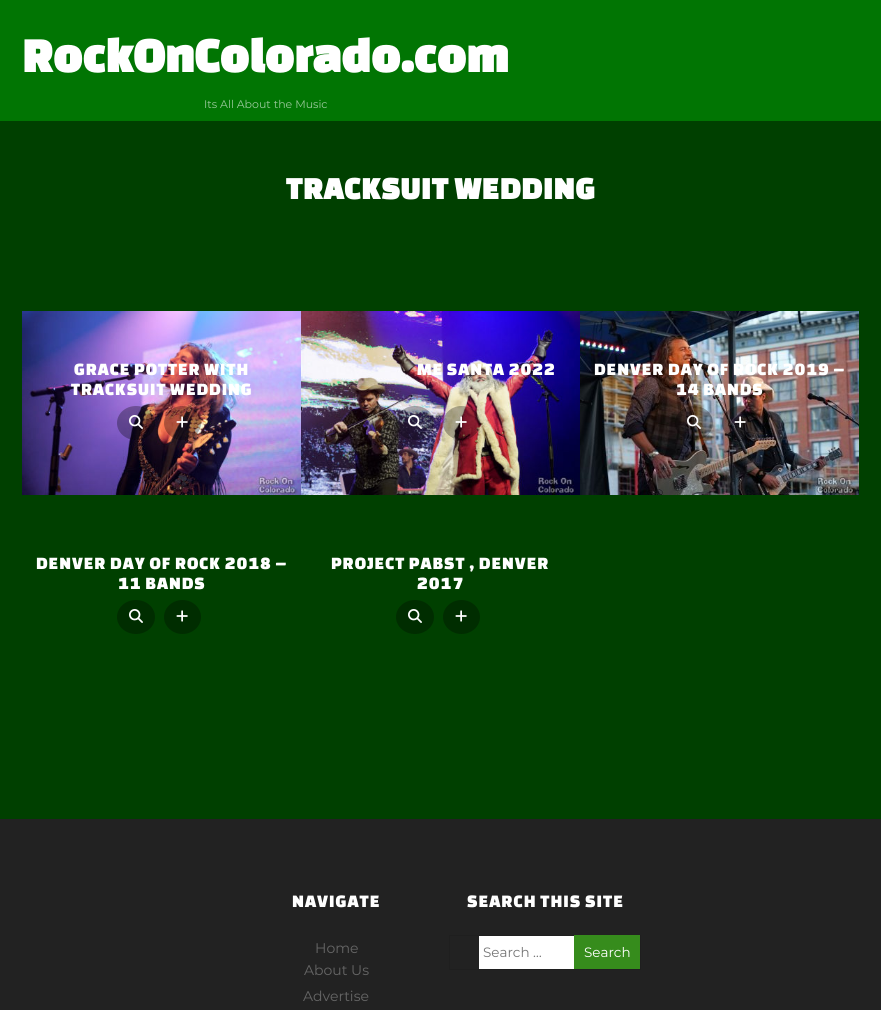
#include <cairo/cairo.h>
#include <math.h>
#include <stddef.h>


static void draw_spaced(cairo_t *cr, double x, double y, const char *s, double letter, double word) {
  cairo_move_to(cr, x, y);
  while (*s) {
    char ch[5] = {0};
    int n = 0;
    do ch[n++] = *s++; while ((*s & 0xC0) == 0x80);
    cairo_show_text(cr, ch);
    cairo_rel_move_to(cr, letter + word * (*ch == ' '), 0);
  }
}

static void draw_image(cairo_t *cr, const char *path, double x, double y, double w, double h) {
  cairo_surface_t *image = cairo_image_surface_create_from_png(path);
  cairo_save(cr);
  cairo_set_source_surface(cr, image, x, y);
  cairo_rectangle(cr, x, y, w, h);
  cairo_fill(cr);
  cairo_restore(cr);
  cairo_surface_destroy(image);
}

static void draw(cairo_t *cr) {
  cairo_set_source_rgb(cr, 0, 64 / 255.0, 0);
  cairo_paint(cr);
  cairo_set_source_rgb(cr, 1 / 255.0, 117 / 255.0, 3 / 255.0);
  cairo_rectangle(cr, 0, 0, 881, 121);
  cairo_fill(cr);
  draw_image(cr, "images/1.png", 22, 311, 279, 184);
  cairo_set_source_rgba(cr, 0, 0, 0, 0.3);
  cairo_new_path(cr);
  cairo_move_to(cr, 136, 406);
  cairo_curve_to(cr, 146.5, 406, 155, 413.5, 155, 423);
  cairo_curve_to(cr, 155, 432.5, 146.5, 440, 136, 440);
  cairo_curve_to(cr, 125.5, 440, 117, 432.5, 117, 423);
  cairo_curve_to(cr, 117, 413.5, 125.5, 406, 136, 406);
  cairo_close_path(cr);
  cairo_fill(cr);
  draw_image(cr, "images/2.png", 129, 415, 14, 14);
  cairo_new_path(cr);
  cairo_move_to(cr, 182.5, 406);
  cairo_curve_to(cr, 192.5, 406, 201, 413.5, 201, 423);
  cairo_curve_to(cr, 201, 432.5, 192.5, 440, 182.5, 440);
  cairo_curve_to(cr, 172.5, 440, 164, 432.5, 164, 423);
  cairo_curve_to(cr, 164, 413.5, 172.5, 406, 182.5, 406);
  cairo_close_path(cr);
  cairo_fill(cr);
  draw_image(cr, "images/3.png", 176, 416, 12, 12);
  draw_image(cr, "images/4.png", 301, 311, 279, 184);
  cairo_new_path(cr);
  cairo_move_to(cr, 415, 406);
  cairo_curve_to(cr, 425.5, 406, 434, 413.5, 434, 423);
  cairo_curve_to(cr, 434, 432.5, 425.5, 440, 415, 440);
  cairo_curve_to(cr, 404.5, 440, 396, 432.5, 396, 423);
  cairo_curve_to(cr, 396, 413.5, 404.5, 406, 415, 406);
  cairo_close_path(cr);
  cairo_fill(cr);
  draw_image(cr, "images/5.png", 408, 415, 14, 14);
  cairo_new_path(cr);
  cairo_move_to(cr, 461.5, 406);
  cairo_curve_to(cr, 471.5, 406, 480, 413.5, 480, 423);
  cairo_curve_to(cr, 480, 432.5, 471.5, 440, 461.5, 440);
  cairo_curve_to(cr, 451.5, 440, 443, 432.5, 443, 423);
  cairo_curve_to(cr, 443, 413.5, 451.5, 406, 461.5, 406);
  cairo_close_path(cr);
  cairo_fill(cr);
  draw_image(cr, "images/6.png", 455, 416, 12, 12);
  draw_image(cr, "images/7.png", 580, 311, 279, 184);
  cairo_new_path(cr);
  cairo_move_to(cr, 694, 406);
  cairo_curve_to(cr, 704.5, 406, 713, 413.5, 713, 423);
  cairo_curve_to(cr, 713, 432.5, 704.5, 440, 694, 440);
  cairo_curve_to(cr, 683.5, 440, 675, 432.5, 675, 423);
  cairo_curve_to(cr, 675, 413.5, 683.5, 406, 694, 406);
  cairo_close_path(cr);
  cairo_fill(cr);
  draw_image(cr, "images/8.png", 687, 415, 14, 14);
  cairo_new_path(cr);
  cairo_move_to(cr, 740.5, 406);
  cairo_curve_to(cr, 750.5, 406, 759, 413.5, 759, 423);
  cairo_curve_to(cr, 759, 432.5, 750.5, 440, 740.5, 440);
  cairo_curve_to(cr, 730.5, 440, 722, 432.5, 722, 423);
  cairo_curve_to(cr, 722, 413.5, 730.5, 406, 740.5, 406);
  cairo_close_path(cr);
  cairo_fill(cr);
  draw_image(cr, "images/9.png", 734, 416, 12, 12);
  cairo_set_source_rgb(cr, 0, 45 / 255.0, 0);
  cairo_new_path(cr);
  cairo_move_to(cr, 136, 600);
  cairo_curve_to(cr, 146.5, 600, 155, 607.5, 155, 617);
  cairo_curve_to(cr, 155, 626.5, 146.5, 634, 136, 634);
  cairo_curve_to(cr, 125.5, 634, 117, 626.5, 117, 617);
  cairo_curve_to(cr, 117, 607.5, 125.5, 600, 136, 600);
  cairo_close_path(cr);
  cairo_fill(cr);
  draw_image(cr, "images/10.png", 129, 609, 14, 14);
  cairo_new_path(cr);
  cairo_move_to(cr, 182.5, 600);
  cairo_curve_to(cr, 192.5, 600, 201, 607.5, 201, 617);
  cairo_curve_to(cr, 201, 626.5, 192.5, 634, 182.5, 634);
  cairo_curve_to(cr, 172.5, 634, 164, 626.5, 164, 617);
  cairo_curve_to(cr, 164, 607.5, 172.5, 600, 182.5, 600);
  cairo_close_path(cr);
  cairo_fill(cr);
  draw_image(cr, "images/11.png", 176, 610, 12, 12);
  cairo_new_path(cr);
  cairo_move_to(cr, 415, 600);
  cairo_curve_to(cr, 425.5, 600, 434, 607.5, 434, 617);
  cairo_curve_to(cr, 434, 626.5, 425.5, 634, 415, 634);
  cairo_curve_to(cr, 404.5, 634, 396, 626.5, 396, 617);
  cairo_curve_to(cr, 396, 607.5, 404.5, 600, 415, 600);
  cairo_close_path(cr);
  cairo_fill(cr);
  draw_image(cr, "images/10.png", 408, 609, 14, 14);
  cairo_new_path(cr);
  cairo_move_to(cr, 461.5, 600);
  cairo_curve_to(cr, 471.5, 600, 480, 607.5, 480, 617);
  cairo_curve_to(cr, 480, 626.5, 471.5, 634, 461.5, 634);
  cairo_curve_to(cr, 451.5, 634, 443, 626.5, 443, 617);
  cairo_curve_to(cr, 443, 607.5, 451.5, 600, 461.5, 600);
  cairo_close_path(cr);
  cairo_fill(cr);
  draw_image(cr, "images/11.png", 455, 610, 12, 12);
  cairo_set_source_rgb(cr, 34 / 255.0, 34 / 255.0, 34 / 255.0);
  cairo_rectangle(cr, 0, 819, 881, 191);
  cairo_fill(cr);
  cairo_rectangle(cr, 449.5, 935.5, 191, 34);
  cairo_set_source_rgb(cr, 31 / 255.0, 31 / 255.0, 31 / 255.0);
  cairo_set_line_width(cr, 1);
  cairo_stroke(cr);
  cairo_set_source_rgb(cr, 1, 1, 1);
  cairo_rectangle(cr, 479, 936, 95, 33);
  cairo_fill(cr);
  cairo_set_source_rgb(cr, 54 / 255.0, 140 / 255.0, 28 / 255.0);
  cairo_rectangle(cr, 574, 935, 66, 34);
  cairo_fill(cr);
  cairo_select_font_face(cr, "Changa One", CAIRO_FONT_SLANT_NORMAL, CAIRO_FONT_WEIGHT_BOLD);
  cairo_set_font_size(cr, 50);
  cairo_set_source_rgb(cr, 1, 1, 1);
  cairo_move_to(cr, 22, 72);
  cairo_show_text(cr, "RockOnColorado.com");
  cairo_select_font_face(cr, "Montserrat", CAIRO_FONT_SLANT_NORMAL, CAIRO_FONT_WEIGHT_NORMAL);
  cairo_set_font_size(cr, 11);
  cairo_set_source_rgb(cr, 153 / 255.0, 200 / 255.0, 154 / 255.0);
  cairo_move_to(cr, 204, 108);
  cairo_show_text(cr, "Its All About the Music");
  cairo_select_font_face(cr, "Changa One", CAIRO_FONT_SLANT_NORMAL, CAIRO_FONT_WEIGHT_BOLD);
  cairo_set_font_size(cr, 32);
  cairo_set_source_rgb(cr, 1, 1, 1);
  draw_spaced(cr, 286, 199, "TRACKSUIT WEDDING", 1, 0);
  cairo_select_font_face(cr, "Changa One", CAIRO_FONT_SLANT_NORMAL, CAIRO_FONT_WEIGHT_NORMAL);
  cairo_set_font_size(cr, 18);
  draw_spaced(cr, 74, 375, "GRACE POTTER WITH", 1, 0);
  draw_spaced(cr, 71, 395, "TRACKSUIT WEDDING", 1, 0);
  draw_spaced(cr, 417, 375, "ME SANTA 2022", 1, 0);
  draw_spaced(cr, 594, 375, "DENVER DAY OF ROCK 2019 –", 1, 0);
  draw_spaced(cr, 676, 395, "14 BANDS", 1, 0);
  draw_spaced(cr, 36, 569, "DENVER DAY OF ROCK 2018 –", 1, 0);
  draw_spaced(cr, 118, 589, "11 BANDS", 1, 0);
  draw_spaced(cr, 331, 569, "PROJECT PABST , DENVER", 1, 0);
  draw_spaced(cr, 417, 589, "2017", 1, 0);
  cairo_set_font_size(cr, 18.25);
  draw_spaced(cr, 292, 907, "NAVIGATE", 1, 0);
  cairo_select_font_face(cr, "Montserrat", CAIRO_FONT_SLANT_NORMAL, CAIRO_FONT_WEIGHT_NORMAL);
  cairo_set_font_size(cr, 14);
  cairo_set_source_rgb(cr, 102 / 255.0, 102 / 255.0, 102 / 255.0);
  cairo_move_to(cr, 315, 953);
  cairo_show_text(cr, "Home");
  cairo_move_to(cr, 304, 975);
  cairo_show_text(cr, "About Us");
  cairo_move_to(cr, 303, 1001);
  cairo_show_text(cr, "Advertise");
  cairo_select_font_face(cr, "Changa One", CAIRO_FONT_SLANT_NORMAL, CAIRO_FONT_WEIGHT_NORMAL);
  cairo_set_font_size(cr, 18.25);
  cairo_set_source_rgb(cr, 1, 1, 1);
  draw_spaced(cr, 467, 907, "SEARCH THIS SITE", 1, 0);
  cairo_select_font_face(cr, "Montserrat", CAIRO_FONT_SLANT_NORMAL, CAIRO_FONT_WEIGHT_NORMAL);
  cairo_set_font_size(cr, 13.5);
  cairo_set_source_rgb(cr, 117 / 255.0, 117 / 255.0, 117 / 255.0);
  cairo_move_to(cr, 483, 957);
  cairo_show_text(cr, "Search …");
  cairo_set_source_rgb(cr, 1, 1, 1);
  cairo_move_to(cr, 584, 957);
  cairo_show_text(cr, "Search");
}

int main(void) {
  cairo_surface_t *surface = cairo_image_surface_create(CAIRO_FORMAT_RGB24, 881, 1010);
  cairo_t *cr = cairo_create(surface);
  cairo_font_options_t *options = cairo_font_options_create();
  cairo_font_options_set_hint_metrics(options, CAIRO_HINT_METRICS_OFF);
  cairo_font_options_set_hint_style(options, CAIRO_HINT_STYLE_NONE);
  cairo_set_font_options(cr, options);
  cairo_set_miter_limit(cr, 4);
  draw(cr);
  cairo_surface_write_to_png(surface, "out.png");
  cairo_font_options_destroy(options);
  cairo_destroy(cr);
  cairo_surface_destroy(surface);
  return 0;
}
